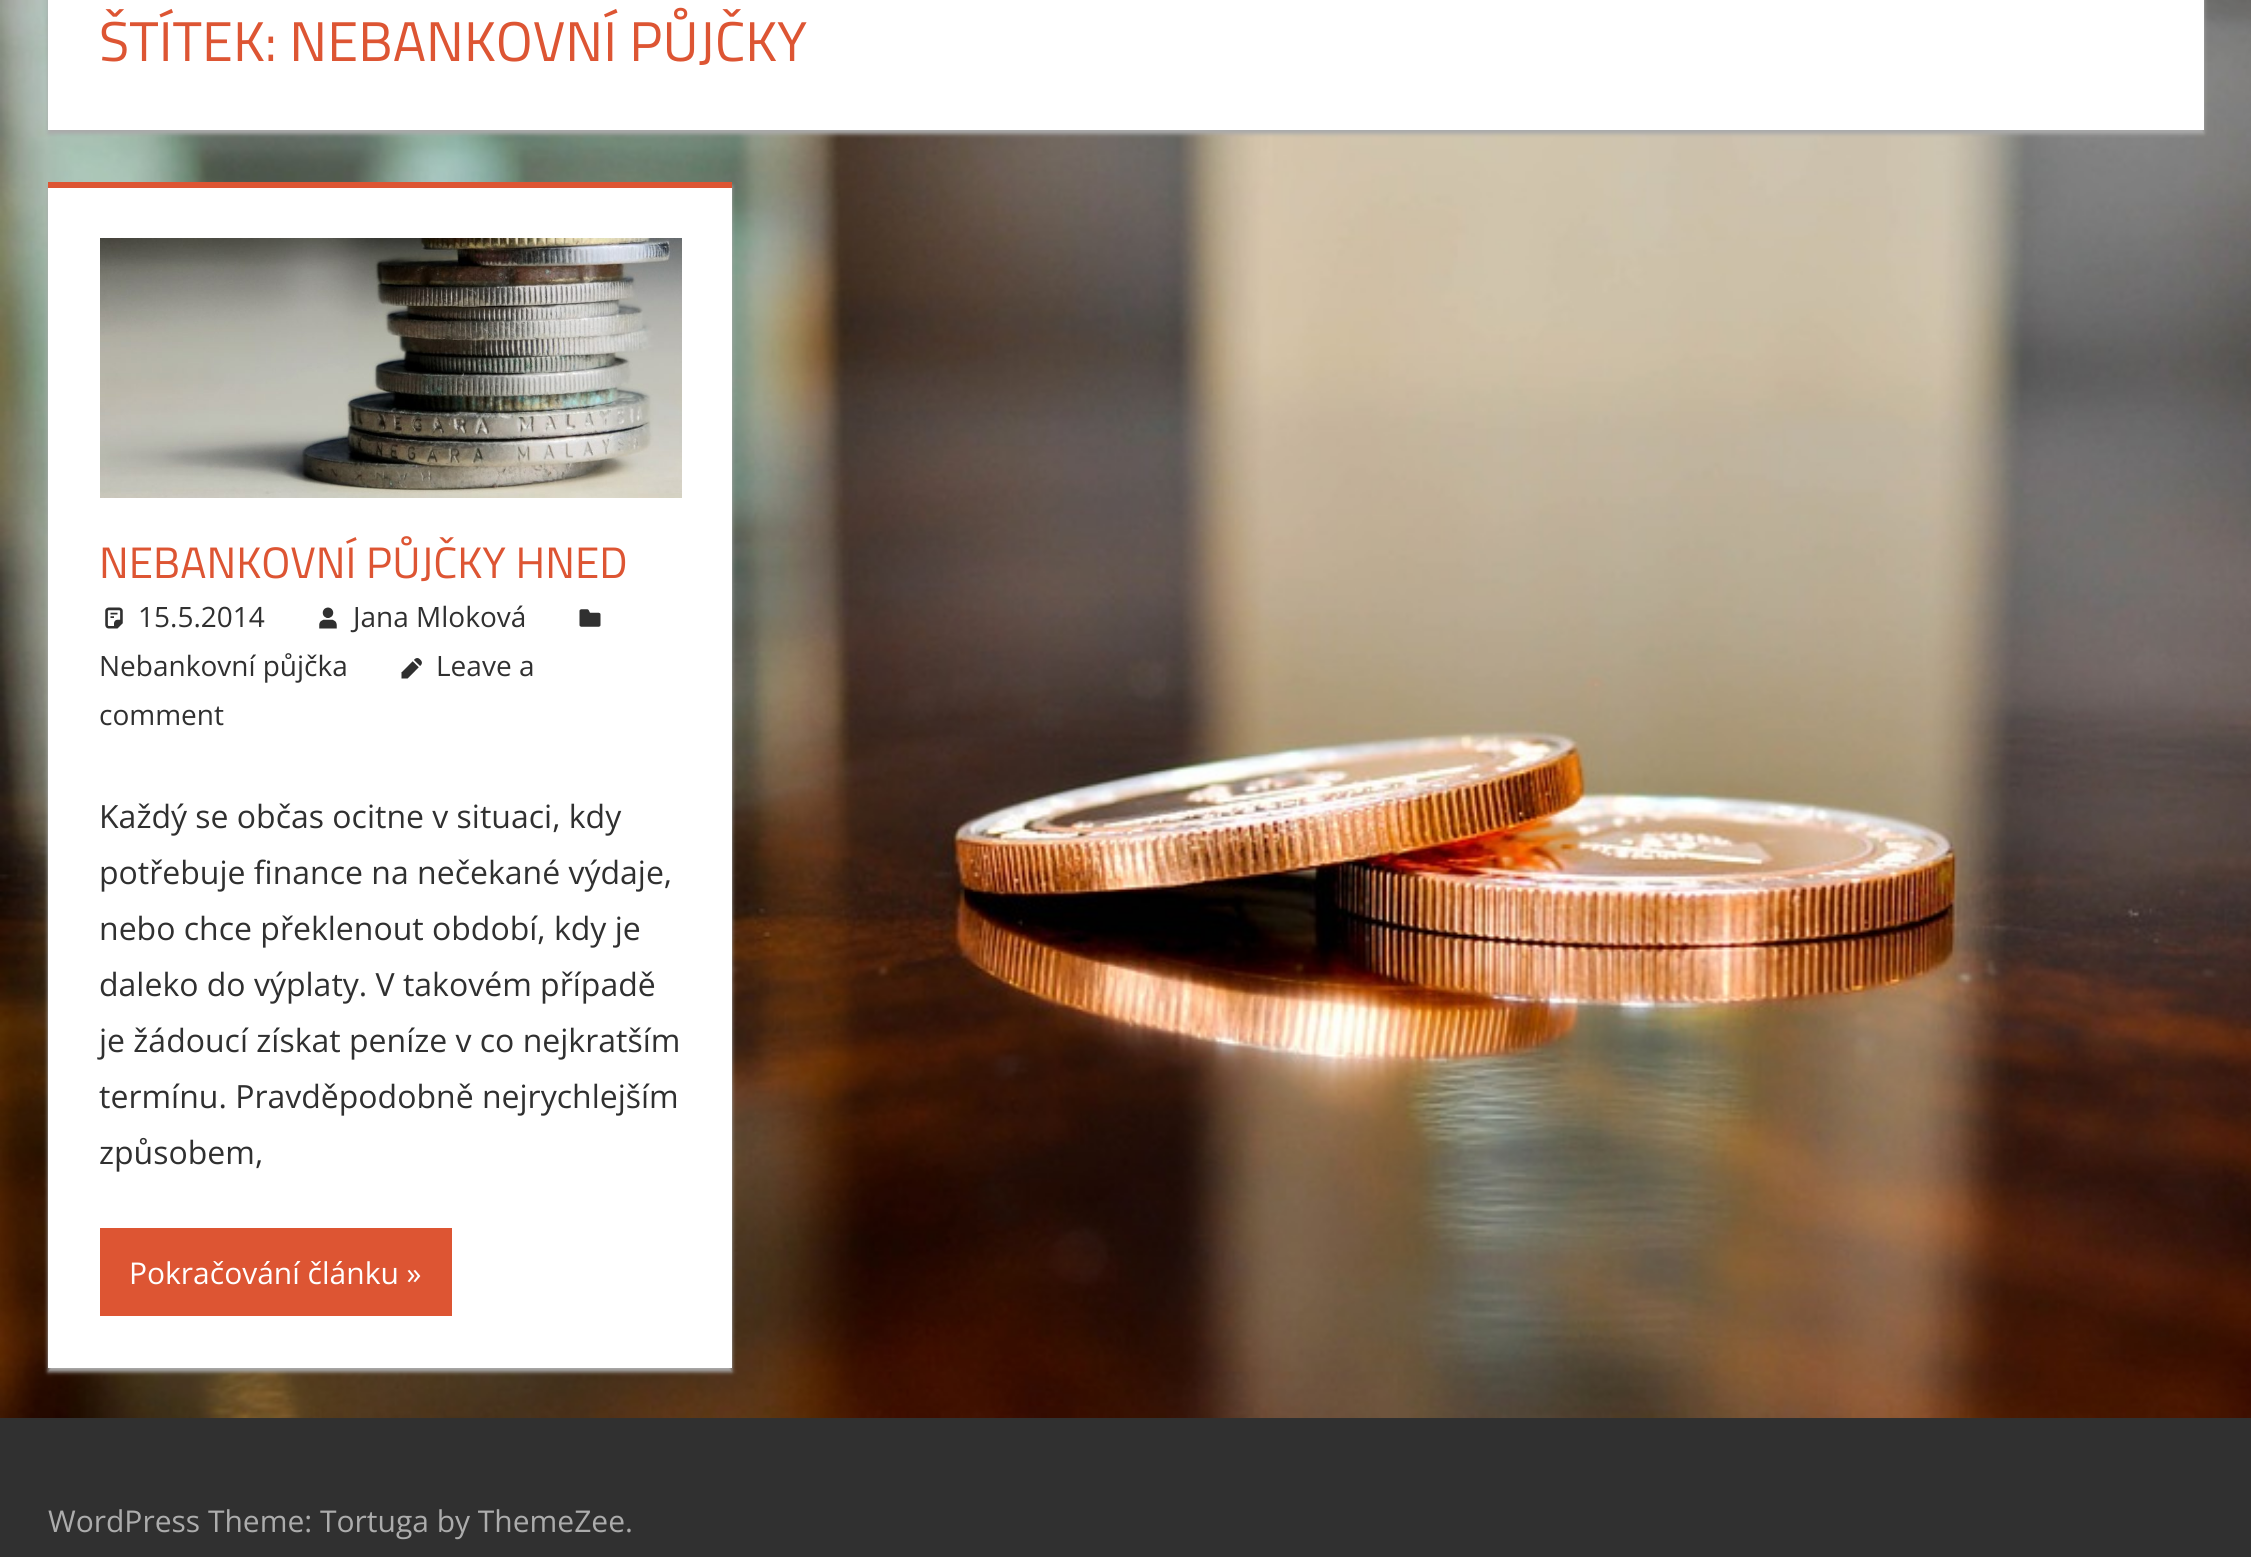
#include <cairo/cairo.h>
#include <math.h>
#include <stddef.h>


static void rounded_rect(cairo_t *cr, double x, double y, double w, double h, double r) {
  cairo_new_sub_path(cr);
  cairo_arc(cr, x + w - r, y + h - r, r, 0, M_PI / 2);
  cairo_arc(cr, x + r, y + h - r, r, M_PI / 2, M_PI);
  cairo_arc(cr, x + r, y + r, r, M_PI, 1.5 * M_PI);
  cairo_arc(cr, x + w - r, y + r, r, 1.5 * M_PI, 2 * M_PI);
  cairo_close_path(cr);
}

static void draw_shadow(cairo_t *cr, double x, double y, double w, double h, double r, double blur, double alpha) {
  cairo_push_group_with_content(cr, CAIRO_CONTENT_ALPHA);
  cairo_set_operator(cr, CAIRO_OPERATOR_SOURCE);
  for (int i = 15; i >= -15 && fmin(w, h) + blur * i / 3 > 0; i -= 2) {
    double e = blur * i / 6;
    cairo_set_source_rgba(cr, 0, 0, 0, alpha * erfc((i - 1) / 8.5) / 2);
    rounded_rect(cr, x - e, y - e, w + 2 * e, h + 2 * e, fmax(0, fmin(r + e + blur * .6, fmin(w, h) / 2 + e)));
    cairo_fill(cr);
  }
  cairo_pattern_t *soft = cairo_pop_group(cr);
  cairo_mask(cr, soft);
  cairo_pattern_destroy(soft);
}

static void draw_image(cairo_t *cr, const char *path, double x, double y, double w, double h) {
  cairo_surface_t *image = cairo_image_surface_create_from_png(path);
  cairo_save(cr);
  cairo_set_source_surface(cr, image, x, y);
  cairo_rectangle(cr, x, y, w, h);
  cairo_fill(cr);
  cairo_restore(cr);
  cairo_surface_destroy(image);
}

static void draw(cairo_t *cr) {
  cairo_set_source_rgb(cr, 1, 1, 1);
  cairo_paint(cr);
  draw_image(cr, "images/1.png", 0, 0, 2251, 1418);
  cairo_set_source_rgb(cr, 170 / 255.0, 170 / 255.0, 170 / 255.0);
  draw_shadow(cr, 48, -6, 2156, 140, 0, 2, 1);
  cairo_set_source_rgb(cr, 1, 1, 1);
  cairo_rectangle(cr, 48, 0, 2156, 130);
  cairo_fill(cr);
  cairo_set_source_rgb(cr, 170 / 255.0, 170 / 255.0, 170 / 255.0);
  draw_shadow(cr, 48, 186, 684, 1186, 0, 2, 1);
  cairo_set_source_rgb(cr, 1, 1, 1);
  cairo_rectangle(cr, 48, 188, 684, 1180);
  cairo_fill(cr);
  cairo_set_source_rgb(cr, 221 / 255.0, 85 / 255.0, 51 / 255.0);
  cairo_rectangle(cr, 48, 182, 684, 6);
  cairo_fill(cr);
  draw_image(cr, "images/2.png", 100, 238, 582, 260);
  draw_image(cr, "images/3.png", 105, 607, 18, 22);
  draw_image(cr, "images/4.png", 319, 607, 18, 22);
  draw_image(cr, "images/5.png", 579, 609, 22, 18);
  draw_image(cr, "images/6.png", 401, 658, 21, 21);
  cairo_rectangle(cr, 100, 1228, 352, 88);
  cairo_fill(cr);
  cairo_set_source_rgb(cr, 48 / 255.0, 48 / 255.0, 48 / 255.0);
  cairo_rectangle(cr, 0, 1418, 2251, 139);
  cairo_fill(cr);
  cairo_select_font_face(cr, "Titillium Web", CAIRO_FONT_SLANT_NORMAL, CAIRO_FONT_WEIGHT_NORMAL);
  cairo_set_font_size(cr, 56);
  cairo_set_source_rgb(cr, 221 / 255.0, 85 / 255.0, 51 / 255.0);
  cairo_move_to(cr, 99, 61);
  cairo_show_text(cr, "ŠTÍTEK: NEBANKOVNÍ PŮJČKY");
  cairo_set_font_size(cr, 44);
  cairo_move_to(cr, 99, 578);
  cairo_show_text(cr, "NEBANKOVNÍ PŮJČKY HNED");
  cairo_select_font_face(cr, "Open Sans", CAIRO_FONT_SLANT_NORMAL, CAIRO_FONT_WEIGHT_NORMAL);
  cairo_set_font_size(cr, 28);
  cairo_set_source_rgb(cr, 48 / 255.0, 48 / 255.0, 48 / 255.0);
  cairo_move_to(cr, 138, 627);
  cairo_show_text(cr, "15.5.2014");
  cairo_move_to(cr, 353, 627);
  cairo_show_text(cr, "Jana Mloková");
  cairo_move_to(cr, 99, 676);
  cairo_show_text(cr, "Nebankovní půjčka");
  cairo_move_to(cr, 436, 676);
  cairo_show_text(cr, "Leave a");
  cairo_move_to(cr, 99, 725);
  cairo_show_text(cr, "comment");
  cairo_set_font_size(cr, 32);
  cairo_move_to(cr, 99, 828);
  cairo_show_text(cr, "Každý se občas ocitne v situaci, kdy");
  cairo_move_to(cr, 99, 884);
  cairo_show_text(cr, "potřebuje finance na nečekané výdaje,");
  cairo_move_to(cr, 99, 940);
  cairo_show_text(cr, "nebo chce překlenout období, kdy je");
  cairo_move_to(cr, 99, 996);
  cairo_show_text(cr, "daleko do výplaty. V takovém případě");
  cairo_move_to(cr, 99, 1052);
  cairo_show_text(cr, "je žádoucí získat peníze v co nejkratším");
  cairo_move_to(cr, 99, 1108);
  cairo_show_text(cr, "termínu. Pravděpodobně nejrychlejším");
  cairo_move_to(cr, 99, 1164);
  cairo_show_text(cr, "způsobem,");
  cairo_set_font_size(cr, 30);
  cairo_set_source_rgb(cr, 1, 1, 1);
  cairo_move_to(cr, 129, 1284);
  cairo_show_text(cr, "Pokračování článku »");
  cairo_set_source_rgb(cr, 172 / 255.0, 172 / 255.0, 172 / 255.0);
  cairo_move_to(cr, 48, 1532);
  cairo_show_text(cr, "WordPress Theme: Tortuga by ThemeZee.");
}

int main(void) {
  cairo_surface_t *surface = cairo_image_surface_create(CAIRO_FORMAT_RGB24, 2251, 1557);
  cairo_t *cr = cairo_create(surface);
  cairo_font_options_t *options = cairo_font_options_create();
  cairo_font_options_set_hint_metrics(options, CAIRO_HINT_METRICS_OFF);
  cairo_font_options_set_hint_style(options, CAIRO_HINT_STYLE_NONE);
  cairo_set_font_options(cr, options);
  cairo_set_miter_limit(cr, 4);
  draw(cr);
  cairo_surface_write_to_png(surface, "out.png");
  cairo_font_options_destroy(options);
  cairo_destroy(cr);
  cairo_surface_destroy(surface);
  return 0;
}
